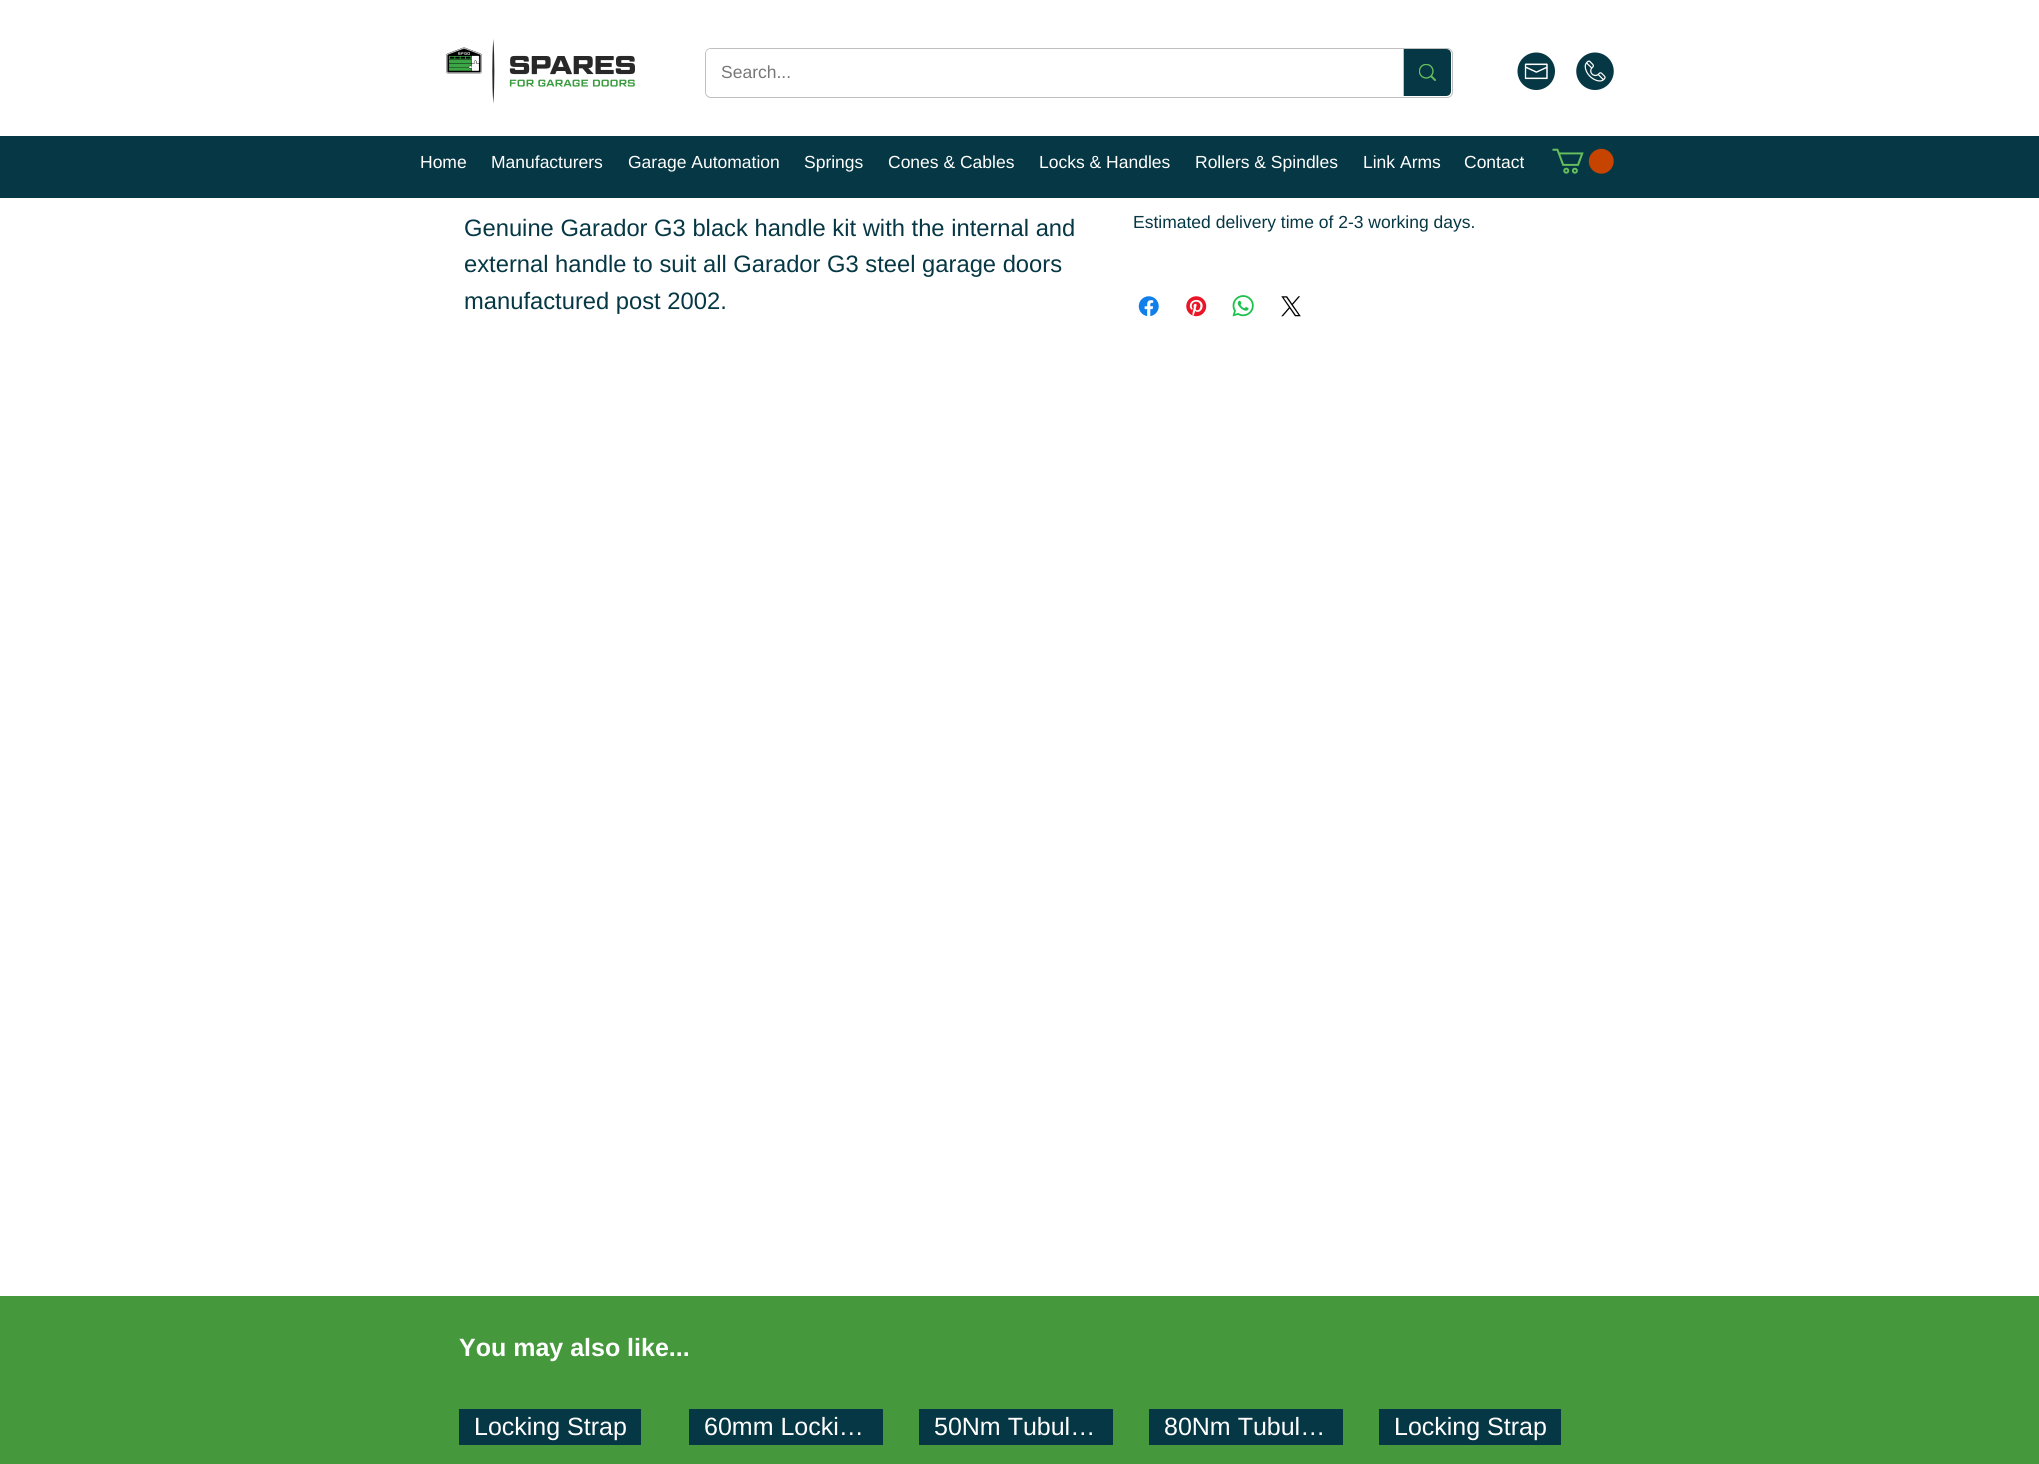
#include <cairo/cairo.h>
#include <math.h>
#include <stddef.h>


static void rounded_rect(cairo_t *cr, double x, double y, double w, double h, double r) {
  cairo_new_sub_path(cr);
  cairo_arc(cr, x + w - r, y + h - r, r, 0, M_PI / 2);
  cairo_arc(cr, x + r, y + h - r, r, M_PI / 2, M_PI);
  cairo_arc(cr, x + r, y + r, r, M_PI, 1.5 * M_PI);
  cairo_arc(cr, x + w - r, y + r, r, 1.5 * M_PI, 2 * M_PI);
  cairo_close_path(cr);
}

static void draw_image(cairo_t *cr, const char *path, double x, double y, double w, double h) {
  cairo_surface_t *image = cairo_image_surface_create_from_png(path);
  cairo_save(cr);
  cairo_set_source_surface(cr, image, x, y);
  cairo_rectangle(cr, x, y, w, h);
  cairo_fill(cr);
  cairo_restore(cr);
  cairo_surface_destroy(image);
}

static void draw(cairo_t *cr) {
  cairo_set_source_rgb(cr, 1, 1, 1);
  cairo_paint(cr);
  draw_image(cr, "images/1.png", 446, 39, 189, 65);
  rounded_rect(cr, 705.5, 48.5, 747, 49, 5.5);
  cairo_set_source_rgb(cr, 191 / 255.0, 191 / 255.0, 191 / 255.0);
  cairo_set_line_width(cr, 1);
  cairo_stroke(cr);
  cairo_set_source_rgb(cr, 1, 1, 1);
  rounded_rect(cr, 706, 49, 745, 47, 5);
  cairo_fill(cr);
  cairo_set_source_rgb(cr, 6 / 255.0, 55 / 255.0, 68 / 255.0);
  cairo_new_path(cr);
  cairo_move_to(cr, 1403, 49);
  cairo_line_to(cr, 1446, 49);
  cairo_curve_to(cr, 1449, 49, 1451, 51, 1451, 54);
  cairo_line_to(cr, 1451, 91);
  cairo_curve_to(cr, 1451, 94, 1449, 96, 1446, 96);
  cairo_line_to(cr, 1403, 96);
  cairo_close_path(cr);
  cairo_fill(cr);
  cairo_set_source_rgb(cr, 191 / 255.0, 191 / 255.0, 191 / 255.0);
  cairo_rectangle(cr, 1403, 49, 1, 47);
  cairo_fill(cr);
  draw_image(cr, "images/2.png", 1419, 64, 17, 17);
  draw_image(cr, "images/3.png", 1517, 52, 38, 38);
  draw_image(cr, "images/4.png", 1576, 52, 38, 38);
  cairo_set_source_rgb(cr, 6 / 255.0, 55 / 255.0, 68 / 255.0);
  cairo_rectangle(cr, 0, 136, 2039, 62);
  cairo_fill(cr);
  draw_image(cr, "images/5.png", 1552, 148, 62, 26);
  draw_image(cr, "images/6.png", 1138, 296, 21, 21);
  draw_image(cr, "images/7.png", 1186, 296, 21, 21);
  draw_image(cr, "images/8.png", 1232, 295, 22, 22);
  draw_image(cr, "images/9.png", 1281, 296, 20, 21);
  cairo_set_source_rgb(cr, 69 / 255.0, 153 / 255.0, 60 / 255.0);
  cairo_rectangle(cr, 0, 1296, 2039, 168);
  cairo_fill(cr);
  cairo_set_source_rgb(cr, 6 / 255.0, 55 / 255.0, 68 / 255.0);
  cairo_rectangle(cr, 459, 1409, 182, 36);
  cairo_fill(cr);
  cairo_rectangle(cr, 689, 1409, 194, 36);
  cairo_fill(cr);
  cairo_rectangle(cr, 919, 1409, 194, 36);
  cairo_fill(cr);
  cairo_rectangle(cr, 1149, 1409, 194, 36);
  cairo_fill(cr);
  cairo_rectangle(cr, 1379, 1409, 182, 36);
  cairo_fill(cr);
  cairo_select_font_face(cr, "Liberation Sans", CAIRO_FONT_SLANT_NORMAL, CAIRO_FONT_WEIGHT_NORMAL);
  cairo_set_font_size(cr, 17.5);
  cairo_set_source_rgb(cr, 120 / 255.0, 120 / 255.0, 120 / 255.0);
  cairo_move_to(cr, 721, 78);
  cairo_show_text(cr, "Search...");
  cairo_set_source_rgb(cr, 1, 1, 1);
  cairo_move_to(cr, 420, 168);
  cairo_show_text(cr, "Home");
  cairo_move_to(cr, 491, 168);
  cairo_show_text(cr, "Manufacturers");
  cairo_move_to(cr, 628, 168);
  cairo_show_text(cr, "Garage Automation");
  cairo_move_to(cr, 804, 168);
  cairo_show_text(cr, "Springs");
  cairo_move_to(cr, 888, 168);
  cairo_show_text(cr, "Cones & Cables");
  cairo_move_to(cr, 1039, 168);
  cairo_show_text(cr, "Locks & Handles");
  cairo_move_to(cr, 1195, 168);
  cairo_show_text(cr, "Rollers & Spindles");
  cairo_move_to(cr, 1363, 168);
  cairo_show_text(cr, "Link Arms");
  cairo_move_to(cr, 1464, 168);
  cairo_show_text(cr, "Contact");
  cairo_set_font_size(cr, 23.75);
  cairo_set_source_rgb(cr, 6 / 255.0, 55 / 255.0, 68 / 255.0);
  cairo_move_to(cr, 464, 236);
  cairo_show_text(cr, "Genuine Garador G3 black handle kit with the internal and");
  cairo_move_to(cr, 464, 272);
  cairo_show_text(cr, "external handle to suit all Garador G3 steel garage doors");
  cairo_move_to(cr, 464, 309);
  cairo_show_text(cr, "manufactured post 2002.");
  cairo_set_font_size(cr, 17.5);
  cairo_move_to(cr, 1133, 228);
  cairo_show_text(cr, "Estimated delivery time of 2-3 working days.");
  cairo_select_font_face(cr, "Liberation Sans", CAIRO_FONT_SLANT_NORMAL, CAIRO_FONT_WEIGHT_BOLD);
  cairo_set_font_size(cr, 25);
  cairo_set_source_rgb(cr, 1, 1, 1);
  cairo_move_to(cr, 459, 1356);
  cairo_show_text(cr, "You may also like...");
  cairo_select_font_face(cr, "Liberation Sans", CAIRO_FONT_SLANT_NORMAL, CAIRO_FONT_WEIGHT_NORMAL);
  cairo_move_to(cr, 474, 1435);
  cairo_show_text(cr, "Locking Strap");
  cairo_move_to(cr, 704, 1435);
  cairo_show_text(cr, "60mm Locki…");
  cairo_move_to(cr, 934, 1435);
  cairo_show_text(cr, "50Nm Tubul…");
  cairo_move_to(cr, 1164, 1435);
  cairo_show_text(cr, "80Nm Tubul…");
  cairo_move_to(cr, 1394, 1435);
  cairo_show_text(cr, "Locking Strap");
}

int main(void) {
  cairo_surface_t *surface = cairo_image_surface_create(CAIRO_FORMAT_RGB24, 2039, 1464);
  cairo_t *cr = cairo_create(surface);
  cairo_font_options_t *options = cairo_font_options_create();
  cairo_font_options_set_hint_metrics(options, CAIRO_HINT_METRICS_OFF);
  cairo_font_options_set_hint_style(options, CAIRO_HINT_STYLE_NONE);
  cairo_set_font_options(cr, options);
  cairo_set_miter_limit(cr, 4);
  draw(cr);
  cairo_surface_write_to_png(surface, "out.png");
  cairo_font_options_destroy(options);
  cairo_destroy(cr);
  cairo_surface_destroy(surface);
  return 0;
}
